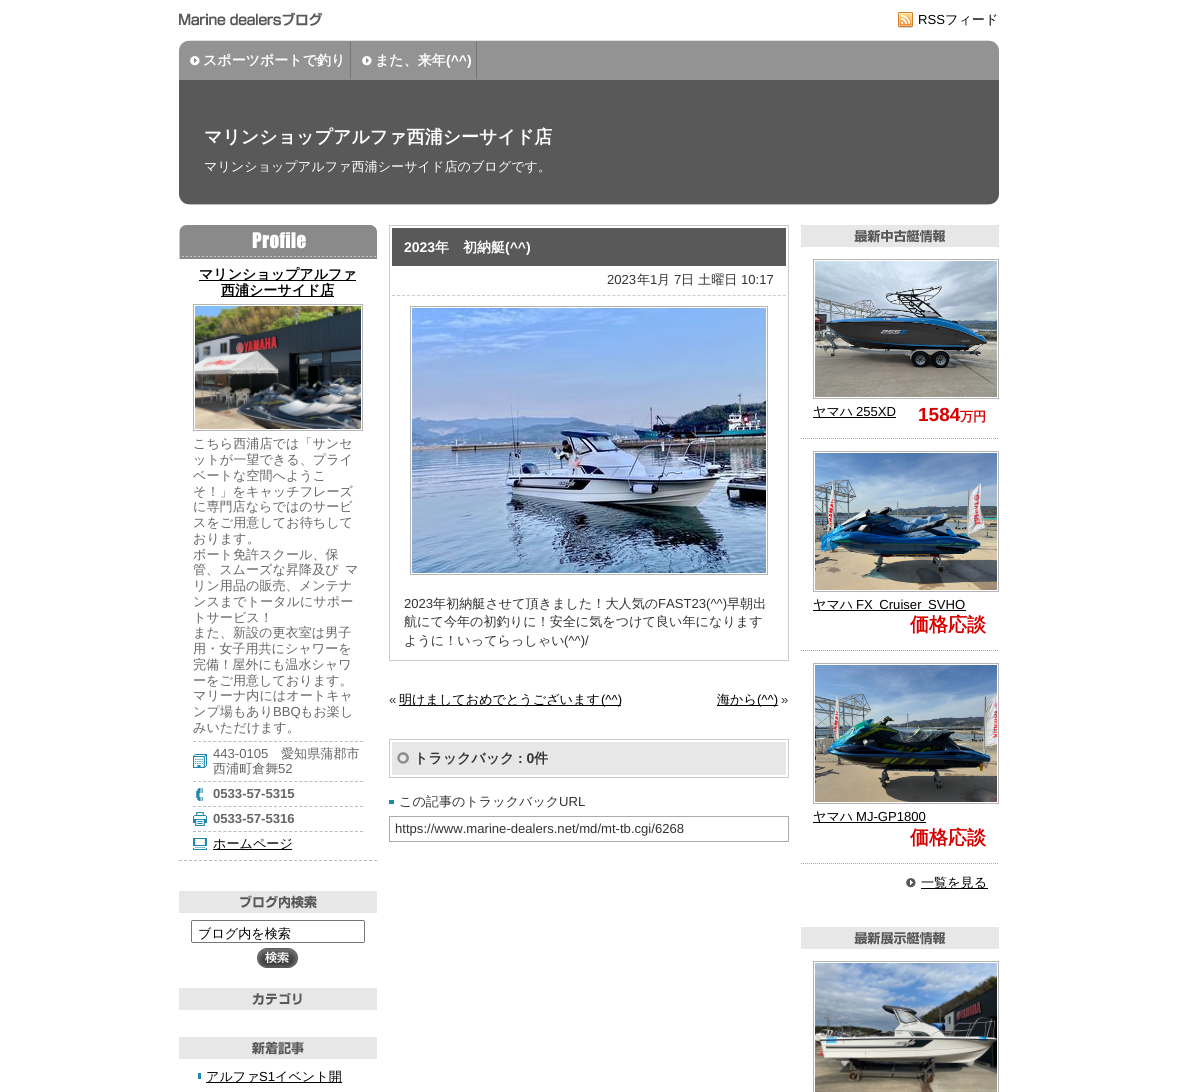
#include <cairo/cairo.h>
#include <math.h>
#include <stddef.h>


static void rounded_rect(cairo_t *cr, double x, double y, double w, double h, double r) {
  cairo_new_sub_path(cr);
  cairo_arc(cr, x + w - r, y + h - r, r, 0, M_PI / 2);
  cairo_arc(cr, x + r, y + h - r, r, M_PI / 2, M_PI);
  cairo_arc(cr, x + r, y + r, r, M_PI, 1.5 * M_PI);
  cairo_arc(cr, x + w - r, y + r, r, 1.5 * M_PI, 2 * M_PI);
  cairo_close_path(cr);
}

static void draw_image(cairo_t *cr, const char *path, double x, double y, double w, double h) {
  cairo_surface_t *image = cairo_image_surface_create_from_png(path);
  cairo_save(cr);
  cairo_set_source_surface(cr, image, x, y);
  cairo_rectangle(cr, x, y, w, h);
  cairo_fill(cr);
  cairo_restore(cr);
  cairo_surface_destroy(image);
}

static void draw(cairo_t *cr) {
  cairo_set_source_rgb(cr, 1, 1, 1);
  cairo_paint(cr);
  draw_image(cr, "images/1.png", 179, 12, 144, 14);
  draw_image(cr, "images/2.png", 898, 12, 15, 16);
  cairo_set_source_rgb(cr, 147 / 255.0, 147 / 255.0, 147 / 255.0);
  cairo_rectangle(cr, 179, 50, 820, 30);
  cairo_fill(cr);
  draw_image(cr, "images/3.png", 179, 40, 820, 10);
  draw_image(cr, "images/4.png", 190, 56, 10, 10);
  cairo_set_source_rgb(cr, 118 / 255.0, 118 / 255.0, 118 / 255.0);
  cairo_rectangle(cr, 350, 42, 1, 37);
  cairo_fill(cr);
  draw_image(cr, "images/4.png", 362, 56, 10, 10);
  cairo_rectangle(cr, 476, 42, 1, 37);
  cairo_fill(cr);
  cairo_set_source_rgb(cr, 89 / 255.0, 89 / 255.0, 89 / 255.0);
  cairo_rectangle(cr, 179, 80, 820, 115);
  cairo_fill(cr);
  draw_image(cr, "images/5.png", 179, 195, 820, 10);
  draw_image(cr, "images/6.png", 179, 225, 198, 34);
  cairo_new_path(cr);
  cairo_move_to(cr, 179, 860.5);
  cairo_line_to(cr, 377, 860.5);
  cairo_set_source_rgb(cr, 188 / 255.0, 188 / 255.0, 188 / 255.0);
  cairo_set_line_width(cr, 1);
  cairo_set_dash(cr, (double[]){3, 2}, 2, 0);
  cairo_stroke(cr);
  cairo_set_source_rgb(cr, 0, 0, 0);
  cairo_rectangle(cr, 199, 280, 157, 1);
  cairo_fill(cr);
  cairo_rectangle(cr, 221, 296, 113, 1);
  cairo_fill(cr);
  cairo_rectangle(cr, 193.5, 304.5, 169, 126);
  cairo_set_source_rgb(cr, 180 / 255.0, 180 / 255.0, 180 / 255.0);
  cairo_set_dash(cr, NULL, 0, 0);
  cairo_stroke(cr);
  draw_image(cr, "images/7.png", 195, 306, 166, 123);
  draw_image(cr, "images/8.png", 193, 754, 14, 14);
  cairo_new_path(cr);
  cairo_move_to(cr, 193, 741.5);
  cairo_line_to(cr, 363, 741.5);
  cairo_set_source_rgb(cr, 188 / 255.0, 188 / 255.0, 188 / 255.0);
  cairo_set_dash(cr, (double[]){3, 2.06}, 2, 0);
  cairo_stroke(cr);
  draw_image(cr, "images/9.png", 196, 788, 7, 13);
  cairo_new_path(cr);
  cairo_move_to(cr, 193, 781.5);
  cairo_line_to(cr, 363, 781.5);
  cairo_stroke(cr);
  draw_image(cr, "images/10.png", 193, 812, 14, 14);
  cairo_new_path(cr);
  cairo_move_to(cr, 193, 806.5);
  cairo_line_to(cr, 363, 806.5);
  cairo_stroke(cr);
  draw_image(cr, "images/11.png", 193, 838, 14, 12);
  cairo_new_path(cr);
  cairo_move_to(cr, 193, 831.5);
  cairo_line_to(cr, 363, 831.5);
  cairo_stroke(cr);
  cairo_set_source_rgb(cr, 0, 0, 0);
  cairo_rectangle(cr, 213, 849, 79, 1);
  cairo_fill(cr);
  draw_image(cr, "images/12.png", 179, 891, 198, 22);
  rounded_rect(cr, 191.5, 920.5, 173, 22, 1.5);
  cairo_set_source_rgb(cr, 118 / 255.0, 118 / 255.0, 118 / 255.0);
  cairo_set_dash(cr, NULL, 0, 0);
  cairo_stroke(cr);
  draw_image(cr, "images/13.png", 257, 948, 41, 20);
  draw_image(cr, "images/14.png", 179, 988, 198, 22);
  draw_image(cr, "images/15.png", 179, 1037, 198, 22);
  cairo_set_source_rgb(cr, 31 / 255.0, 136 / 255.0, 172 / 255.0);
  cairo_rectangle(cr, 198, 1073, 3, 6);
  cairo_fill(cr);
  cairo_set_source_rgb(cr, 0, 0, 0);
  cairo_rectangle(cr, 206, 1082, 136, 1);
  cairo_fill(cr);
  cairo_rectangle(cr, 389.5, 225.5, 399, 435);
  cairo_set_source_rgb(cr, 204 / 255.0, 204 / 255.0, 204 / 255.0);
  cairo_stroke(cr);
  cairo_set_source_rgb(cr, 89 / 255.0, 89 / 255.0, 89 / 255.0);
  cairo_rectangle(cr, 392, 228, 394, 38);
  cairo_fill(cr);
  cairo_new_path(cr);
  cairo_move_to(cr, 392, 295.5);
  cairo_line_to(cr, 786, 295.5);
  cairo_set_source_rgb(cr, 204 / 255.0, 204 / 255.0, 204 / 255.0);
  cairo_set_dash(cr, (double[]){3, 2.01}, 2, 0);
  cairo_stroke(cr);
  cairo_rectangle(cr, 410.5, 306.5, 357, 268);
  cairo_set_source_rgb(cr, 180 / 255.0, 180 / 255.0, 180 / 255.0);
  cairo_set_dash(cr, NULL, 0, 0);
  cairo_stroke(cr);
  draw_image(cr, "images/16.png", 412, 308, 354, 265);
  cairo_set_source_rgb(cr, 0, 0, 0);
  cairo_rectangle(cr, 399, 705, 222, 1);
  cairo_fill(cr);
  cairo_rectangle(cr, 717, 705, 61, 1);
  cairo_fill(cr);
  cairo_rectangle(cr, 389.5, 739.5, 399, 38);
  cairo_set_source_rgb(cr, 204 / 255.0, 204 / 255.0, 204 / 255.0);
  cairo_stroke(cr);
  cairo_set_source_rgb(cr, 231 / 255.0, 231 / 255.0, 231 / 255.0);
  cairo_rectangle(cr, 392, 742, 394, 33);
  cairo_fill(cr);
  draw_image(cr, "images/17.png", 397, 752, 12, 12);
  cairo_set_source_rgb(cr, 31 / 255.0, 136 / 255.0, 172 / 255.0);
  cairo_rectangle(cr, 389, 800, 5, 4);
  cairo_fill(cr);
  cairo_rectangle(cr, 389.5, 816.5, 399, 25);
  cairo_set_source_rgb(cr, 165 / 255.0, 172 / 255.0, 178 / 255.0);
  cairo_stroke(cr);
  draw_image(cr, "images/18.png", 801, 225, 198, 22);
  cairo_new_path(cr);
  cairo_move_to(cr, 801, 438.5);
  cairo_line_to(cr, 999, 438.5);
  cairo_set_source_rgb(cr, 156 / 255.0, 165 / 255.0, 176 / 255.0);
  cairo_set_dash(cr, (double[]){1, 1}, 2, 0);
  cairo_stroke(cr);
  cairo_rectangle(cr, 813.5, 259.5, 185, 139);
  cairo_set_source_rgb(cr, 180 / 255.0, 180 / 255.0, 180 / 255.0);
  cairo_set_dash(cr, NULL, 0, 0);
  cairo_stroke(cr);
  draw_image(cr, "images/19.png", 815, 261, 182, 136);
  cairo_set_source_rgb(cr, 0, 0, 0);
  cairo_rectangle(cr, 813, 417, 83, 1);
  cairo_fill(cr);
  cairo_new_path(cr);
  cairo_move_to(cr, 801, 650.5);
  cairo_line_to(cr, 999, 650.5);
  cairo_set_source_rgb(cr, 156 / 255.0, 165 / 255.0, 176 / 255.0);
  cairo_set_dash(cr, (double[]){1, 1}, 2, 0);
  cairo_stroke(cr);
  cairo_rectangle(cr, 813.5, 451.5, 185, 140);
  cairo_set_source_rgb(cr, 180 / 255.0, 180 / 255.0, 180 / 255.0);
  cairo_set_dash(cr, NULL, 0, 0);
  cairo_stroke(cr);
  draw_image(cr, "images/20.png", 815, 453, 182, 137);
  cairo_set_source_rgb(cr, 0, 0, 0);
  cairo_rectangle(cr, 813, 610, 153, 1);
  cairo_fill(cr);
  cairo_new_path(cr);
  cairo_move_to(cr, 801, 863.5);
  cairo_line_to(cr, 999, 863.5);
  cairo_set_source_rgb(cr, 156 / 255.0, 165 / 255.0, 176 / 255.0);
  cairo_set_dash(cr, (double[]){1, 1}, 2, 0);
  cairo_stroke(cr);
  cairo_rectangle(cr, 813.5, 663.5, 185, 140);
  cairo_set_source_rgb(cr, 180 / 255.0, 180 / 255.0, 180 / 255.0);
  cairo_set_dash(cr, NULL, 0, 0);
  cairo_stroke(cr);
  draw_image(cr, "images/21.png", 815, 665, 182, 137);
  cairo_set_source_rgb(cr, 0, 0, 0);
  cairo_rectangle(cr, 813, 822, 113, 1);
  cairo_fill(cr);
  draw_image(cr, "images/22.png", 906, 878, 10, 10);
  cairo_rectangle(cr, 921, 888, 67, 1);
  cairo_fill(cr);
  draw_image(cr, "images/23.png", 801, 927, 198, 22);
  cairo_rectangle(cr, 813.5, 961.5, 185, 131);
  cairo_set_source_rgb(cr, 180 / 255.0, 180 / 255.0, 180 / 255.0);
  cairo_stroke(cr);
  draw_image(cr, "images/24.png", 815, 963, 182, 129);
  cairo_select_font_face(cr, "Liberation Sans", CAIRO_FONT_SLANT_NORMAL, CAIRO_FONT_WEIGHT_NORMAL);
  cairo_set_font_size(cr, 13.1);
  cairo_set_source_rgb(cr, 0, 0, 0);
  cairo_move_to(cr, 918, 24);
  cairo_show_text(cr, "RSS");
  cairo_select_font_face(cr, "WenQuanYi Zen Hei Medium", CAIRO_FONT_SLANT_NORMAL, CAIRO_FONT_WEIGHT_NORMAL);
  cairo_move_to(cr, 945, 24);
  cairo_show_text(cr, "フィード");
  cairo_select_font_face(cr, "WenQuanYi Zen Hei", CAIRO_FONT_SLANT_NORMAL, CAIRO_FONT_WEIGHT_BOLD);
  cairo_set_font_size(cr, 14);
  cairo_set_source_rgb(cr, 1, 1, 1);
  cairo_move_to(cr, 203, 65);
  cairo_show_text(cr, "スポーツボートで釣り");
  cairo_move_to(cr, 375, 65);
  cairo_show_text(cr, "また、来年");
  cairo_select_font_face(cr, "Liberation Sans", CAIRO_FONT_SLANT_NORMAL, CAIRO_FONT_WEIGHT_BOLD);
  cairo_move_to(cr, 446, 65);
  cairo_show_text(cr, "(^^)");
  cairo_select_font_face(cr, "WenQuanYi Zen Hei", CAIRO_FONT_SLANT_NORMAL, CAIRO_FONT_WEIGHT_BOLD);
  cairo_set_font_size(cr, 18);
  cairo_move_to(cr, 204, 143);
  cairo_show_text(cr, "マリンショップアルファ西浦シーサイド店");
  cairo_select_font_face(cr, "WenQuanYi Zen Hei Medium", CAIRO_FONT_SLANT_NORMAL, CAIRO_FONT_WEIGHT_NORMAL);
  cairo_set_font_size(cr, 13.1);
  cairo_move_to(cr, 204, 171);
  cairo_show_text(cr, "マリンショップアルファ西浦シーサイド店のブログです。");
  cairo_select_font_face(cr, "WenQuanYi Zen Hei", CAIRO_FONT_SLANT_NORMAL, CAIRO_FONT_WEIGHT_BOLD);
  cairo_set_font_size(cr, 14);
  cairo_set_source_rgb(cr, 0, 0, 0);
  cairo_move_to(cr, 199, 279);
  cairo_show_text(cr, "マリンショップアルファ");
  cairo_move_to(cr, 221, 295);
  cairo_show_text(cr, "西浦シーサイド店");
  cairo_select_font_face(cr, "WenQuanYi Zen Hei Medium", CAIRO_FONT_SLANT_NORMAL, CAIRO_FONT_WEIGHT_NORMAL);
  cairo_set_font_size(cr, 13.1);
  cairo_set_source_rgb(cr, 102 / 255.0, 102 / 255.0, 102 / 255.0);
  cairo_move_to(cr, 193, 448);
  cairo_show_text(cr, "こちら西浦店では「サンセ");
  cairo_move_to(cr, 193, 464);
  cairo_show_text(cr, "ットが一望できる、プライ");
  cairo_move_to(cr, 193, 480);
  cairo_show_text(cr, "ベートな空間へようこ");
  cairo_move_to(cr, 193, 496);
  cairo_show_text(cr, "そ！」をキャッチフレーズ");
  cairo_move_to(cr, 193, 511);
  cairo_show_text(cr, "に専門店ならではのサービ");
  cairo_move_to(cr, 193, 527);
  cairo_show_text(cr, "スをご用意してお待ちして");
  cairo_move_to(cr, 193, 543);
  cairo_show_text(cr, "おります。");
  cairo_move_to(cr, 193, 559);
  cairo_show_text(cr, "ボート免許スクール、保");
  cairo_move_to(cr, 193, 574);
  cairo_show_text(cr, "管、スムーズな昇降及び");
  cairo_move_to(cr, 345, 574);
  cairo_show_text(cr, "マ");
  cairo_move_to(cr, 193, 590);
  cairo_show_text(cr, "リン用品の販売、メンテナ");
  cairo_move_to(cr, 193, 606);
  cairo_show_text(cr, "ンスまでトータルにサポー");
  cairo_move_to(cr, 193, 622);
  cairo_show_text(cr, "トサービス！");
  cairo_move_to(cr, 193, 637);
  cairo_show_text(cr, "また、新設の更衣室は男子");
  cairo_move_to(cr, 193, 653);
  cairo_show_text(cr, "用・女子用共にシャワーを");
  cairo_move_to(cr, 193, 669);
  cairo_show_text(cr, "完備！屋外にも温水シャワ");
  cairo_move_to(cr, 193, 685);
  cairo_show_text(cr, "ーをご用意しております。");
  cairo_move_to(cr, 193, 700);
  cairo_show_text(cr, "マリーナ内にはオートキャ");
  cairo_move_to(cr, 193, 716);
  cairo_show_text(cr, "ンプ場もあり");
  cairo_select_font_face(cr, "Liberation Sans", CAIRO_FONT_SLANT_NORMAL, CAIRO_FONT_WEIGHT_NORMAL);
  cairo_move_to(cr, 273, 716);
  cairo_show_text(cr, "BBQ");
  cairo_select_font_face(cr, "WenQuanYi Zen Hei Medium", CAIRO_FONT_SLANT_NORMAL, CAIRO_FONT_WEIGHT_NORMAL);
  cairo_move_to(cr, 300, 716);
  cairo_show_text(cr, "もお楽し");
  cairo_move_to(cr, 193, 732);
  cairo_show_text(cr, "みいただけます。");
  cairo_select_font_face(cr, "Liberation Sans", CAIRO_FONT_SLANT_NORMAL, CAIRO_FONT_WEIGHT_NORMAL);
  cairo_move_to(cr, 213, 758);
  cairo_show_text(cr, "443-0105");
  cairo_select_font_face(cr, "WenQuanYi Zen Hei Medium", CAIRO_FONT_SLANT_NORMAL, CAIRO_FONT_WEIGHT_NORMAL);
  cairo_move_to(cr, 281, 758);
  cairo_show_text(cr, "愛知県蒲郡市");
  cairo_move_to(cr, 213, 773);
  cairo_show_text(cr, "西浦町倉舞");
  cairo_select_font_face(cr, "Liberation Sans", CAIRO_FONT_SLANT_NORMAL, CAIRO_FONT_WEIGHT_NORMAL);
  cairo_move_to(cr, 278, 773);
  cairo_show_text(cr, "52");
  cairo_select_font_face(cr, "Liberation Sans", CAIRO_FONT_SLANT_NORMAL, CAIRO_FONT_WEIGHT_BOLD);
  cairo_move_to(cr, 213, 798);
  cairo_show_text(cr, "0533-57-5315");
  cairo_move_to(cr, 213, 823);
  cairo_show_text(cr, "0533-57-5316");
  cairo_select_font_face(cr, "WenQuanYi Zen Hei Medium", CAIRO_FONT_SLANT_NORMAL, CAIRO_FONT_WEIGHT_NORMAL);
  cairo_set_source_rgb(cr, 0, 0, 0);
  cairo_move_to(cr, 213, 848);
  cairo_show_text(cr, "ホームページ");
  cairo_move_to(cr, 198, 938);
  cairo_show_text(cr, "ブログ内を検索");
  cairo_move_to(cr, 206, 1081);
  cairo_show_text(cr, "アルファ");
  cairo_select_font_face(cr, "Liberation Sans", CAIRO_FONT_SLANT_NORMAL, CAIRO_FONT_WEIGHT_NORMAL);
  cairo_move_to(cr, 259, 1081);
  cairo_show_text(cr, "S1");
  cairo_select_font_face(cr, "WenQuanYi Zen Hei Medium", CAIRO_FONT_SLANT_NORMAL, CAIRO_FONT_WEIGHT_NORMAL);
  cairo_move_to(cr, 275, 1081);
  cairo_show_text(cr, "イベント開");
  cairo_select_font_face(cr, "Liberation Sans", CAIRO_FONT_SLANT_NORMAL, CAIRO_FONT_WEIGHT_BOLD);
  cairo_set_font_size(cr, 14);
  cairo_set_source_rgb(cr, 1, 1, 1);
  cairo_move_to(cr, 404, 252);
  cairo_show_text(cr, "2023");
  cairo_select_font_face(cr, "WenQuanYi Zen Hei", CAIRO_FONT_SLANT_NORMAL, CAIRO_FONT_WEIGHT_BOLD);
  cairo_move_to(cr, 435, 252);
  cairo_show_text(cr, "年　初納艇");
  cairo_select_font_face(cr, "Liberation Sans", CAIRO_FONT_SLANT_NORMAL, CAIRO_FONT_WEIGHT_BOLD);
  cairo_move_to(cr, 505, 252);
  cairo_show_text(cr, "(^^)");
  cairo_select_font_face(cr, "Liberation Sans", CAIRO_FONT_SLANT_NORMAL, CAIRO_FONT_WEIGHT_NORMAL);
  cairo_set_font_size(cr, 13.1);
  cairo_set_source_rgb(cr, 51 / 255.0, 51 / 255.0, 51 / 255.0);
  cairo_move_to(cr, 607, 284);
  cairo_show_text(cr, "2023");
  cairo_select_font_face(cr, "WenQuanYi Zen Hei Medium", CAIRO_FONT_SLANT_NORMAL, CAIRO_FONT_WEIGHT_NORMAL);
  cairo_move_to(cr, 637, 284);
  cairo_show_text(cr, "年");
  cairo_select_font_face(cr, "Liberation Sans", CAIRO_FONT_SLANT_NORMAL, CAIRO_FONT_WEIGHT_NORMAL);
  cairo_move_to(cr, 650, 284);
  cairo_show_text(cr, "1");
  cairo_select_font_face(cr, "WenQuanYi Zen Hei Medium", CAIRO_FONT_SLANT_NORMAL, CAIRO_FONT_WEIGHT_NORMAL);
  cairo_move_to(cr, 657, 284);
  cairo_show_text(cr, "月");
  cairo_select_font_face(cr, "Liberation Sans", CAIRO_FONT_SLANT_NORMAL, CAIRO_FONT_WEIGHT_NORMAL);
  cairo_move_to(cr, 674, 284);
  cairo_show_text(cr, "7");
  cairo_select_font_face(cr, "WenQuanYi Zen Hei Medium", CAIRO_FONT_SLANT_NORMAL, CAIRO_FONT_WEIGHT_NORMAL);
  cairo_move_to(cr, 681, 284);
  cairo_show_text(cr, "日 土曜日");
  cairo_select_font_face(cr, "Liberation Sans", CAIRO_FONT_SLANT_NORMAL, CAIRO_FONT_WEIGHT_NORMAL);
  cairo_move_to(cr, 741, 284);
  cairo_show_text(cr, "10:17");
  cairo_move_to(cr, 404, 608);
  cairo_show_text(cr, "2023");
  cairo_select_font_face(cr, "WenQuanYi Zen Hei Medium", CAIRO_FONT_SLANT_NORMAL, CAIRO_FONT_WEIGHT_NORMAL);
  cairo_move_to(cr, 433, 608);
  cairo_show_text(cr, "年初納艇させて頂きました！大人気の");
  cairo_select_font_face(cr, "Liberation Sans", CAIRO_FONT_SLANT_NORMAL, CAIRO_FONT_WEIGHT_NORMAL);
  cairo_move_to(cr, 658, 608);
  cairo_show_text(cr, "FAST23(^^)");
  cairo_select_font_face(cr, "WenQuanYi Zen Hei Medium", CAIRO_FONT_SLANT_NORMAL, CAIRO_FONT_WEIGHT_NORMAL);
  cairo_move_to(cr, 727, 608);
  cairo_show_text(cr, "早朝出");
  cairo_move_to(cr, 404, 626);
  cairo_show_text(cr, "航にて今年の初釣りに！安全に気をつけて良い年になります");
  cairo_move_to(cr, 404, 645);
  cairo_show_text(cr, "ように！いってらっしゃい");
  cairo_select_font_face(cr, "Liberation Sans", CAIRO_FONT_SLANT_NORMAL, CAIRO_FONT_WEIGHT_NORMAL);
  cairo_move_to(cr, 564, 645);
  cairo_show_text(cr, "(^^)/");
  cairo_move_to(cr, 389, 704);
  cairo_show_text(cr, "«");
  cairo_select_font_face(cr, "WenQuanYi Zen Hei Medium", CAIRO_FONT_SLANT_NORMAL, CAIRO_FONT_WEIGHT_NORMAL);
  cairo_set_source_rgb(cr, 0, 0, 0);
  cairo_move_to(cr, 399, 704);
  cairo_show_text(cr, "明けましておめでとうございます");
  cairo_select_font_face(cr, "Liberation Sans", CAIRO_FONT_SLANT_NORMAL, CAIRO_FONT_WEIGHT_NORMAL);
  cairo_move_to(cr, 601, 704);
  cairo_show_text(cr, "(^^)");
  cairo_select_font_face(cr, "WenQuanYi Zen Hei Medium", CAIRO_FONT_SLANT_NORMAL, CAIRO_FONT_WEIGHT_NORMAL);
  cairo_move_to(cr, 717, 704);
  cairo_show_text(cr, "海から");
  cairo_select_font_face(cr, "Liberation Sans", CAIRO_FONT_SLANT_NORMAL, CAIRO_FONT_WEIGHT_NORMAL);
  cairo_move_to(cr, 757, 704);
  cairo_show_text(cr, "(^^)");
  cairo_set_source_rgb(cr, 51 / 255.0, 51 / 255.0, 51 / 255.0);
  cairo_move_to(cr, 781, 704);
  cairo_show_text(cr, "»");
  cairo_select_font_face(cr, "WenQuanYi Zen Hei", CAIRO_FONT_SLANT_NORMAL, CAIRO_FONT_WEIGHT_BOLD);
  cairo_set_font_size(cr, 14);
  cairo_move_to(cr, 414, 763);
  cairo_show_text(cr, "トラックバック");
  cairo_select_font_face(cr, "Liberation Sans", CAIRO_FONT_SLANT_NORMAL, CAIRO_FONT_WEIGHT_BOLD);
  cairo_move_to(cr, 518, 763);
  cairo_show_text(cr, ": 0");
  cairo_select_font_face(cr, "WenQuanYi Zen Hei", CAIRO_FONT_SLANT_NORMAL, CAIRO_FONT_WEIGHT_BOLD);
  cairo_move_to(cr, 534, 763);
  cairo_show_text(cr, "件");
  cairo_select_font_face(cr, "WenQuanYi Zen Hei Medium", CAIRO_FONT_SLANT_NORMAL, CAIRO_FONT_WEIGHT_NORMAL);
  cairo_set_font_size(cr, 13.1);
  cairo_move_to(cr, 399, 806);
  cairo_show_text(cr, "この記事のトラックバック");
  cairo_select_font_face(cr, "Liberation Sans", CAIRO_FONT_SLANT_NORMAL, CAIRO_FONT_WEIGHT_NORMAL);
  cairo_move_to(cr, 559, 806);
  cairo_show_text(cr, "URL");
  cairo_move_to(cr, 395, 833);
  cairo_show_text(cr, "https://www.marine-dealers.net/md/mt-tb.cgi/6268");
  cairo_select_font_face(cr, "WenQuanYi Zen Hei Medium", CAIRO_FONT_SLANT_NORMAL, CAIRO_FONT_WEIGHT_NORMAL);
  cairo_set_source_rgb(cr, 0, 0, 0);
  cairo_move_to(cr, 813, 416);
  cairo_show_text(cr, "ヤマハ");
  cairo_select_font_face(cr, "Liberation Sans", CAIRO_FONT_SLANT_NORMAL, CAIRO_FONT_WEIGHT_NORMAL);
  cairo_move_to(cr, 856, 416);
  cairo_show_text(cr, "255XD");
  cairo_select_font_face(cr, "Liberation Sans", CAIRO_FONT_SLANT_NORMAL, CAIRO_FONT_WEIGHT_BOLD);
  cairo_set_font_size(cr, 19);
  cairo_set_source_rgb(cr, 215 / 255.0, 0, 0);
  cairo_move_to(cr, 918, 421);
  cairo_show_text(cr, "1584");
  cairo_select_font_face(cr, "WenQuanYi Zen Hei", CAIRO_FONT_SLANT_NORMAL, CAIRO_FONT_WEIGHT_BOLD);
  cairo_set_font_size(cr, 13.1);
  cairo_move_to(cr, 960, 421);
  cairo_show_text(cr, "万円");
  cairo_select_font_face(cr, "WenQuanYi Zen Hei Medium", CAIRO_FONT_SLANT_NORMAL, CAIRO_FONT_WEIGHT_NORMAL);
  cairo_set_source_rgb(cr, 0, 0, 0);
  cairo_move_to(cr, 813, 609);
  cairo_show_text(cr, "ヤマハ");
  cairo_select_font_face(cr, "Liberation Sans", CAIRO_FONT_SLANT_NORMAL, CAIRO_FONT_WEIGHT_NORMAL);
  cairo_move_to(cr, 856, 609);
  cairo_show_text(cr, "FX Cruiser SVHO");
  cairo_select_font_face(cr, "WenQuanYi Zen Hei", CAIRO_FONT_SLANT_NORMAL, CAIRO_FONT_WEIGHT_BOLD);
  cairo_set_font_size(cr, 19);
  cairo_set_source_rgb(cr, 215 / 255.0, 0, 0);
  cairo_move_to(cr, 910, 631);
  cairo_show_text(cr, "価格応談");
  cairo_select_font_face(cr, "WenQuanYi Zen Hei Medium", CAIRO_FONT_SLANT_NORMAL, CAIRO_FONT_WEIGHT_NORMAL);
  cairo_set_font_size(cr, 13.1);
  cairo_set_source_rgb(cr, 0, 0, 0);
  cairo_move_to(cr, 813, 821);
  cairo_show_text(cr, "ヤマハ");
  cairo_select_font_face(cr, "Liberation Sans", CAIRO_FONT_SLANT_NORMAL, CAIRO_FONT_WEIGHT_NORMAL);
  cairo_move_to(cr, 856, 821);
  cairo_show_text(cr, "MJ-GP1800");
  cairo_select_font_face(cr, "WenQuanYi Zen Hei", CAIRO_FONT_SLANT_NORMAL, CAIRO_FONT_WEIGHT_BOLD);
  cairo_set_font_size(cr, 19);
  cairo_set_source_rgb(cr, 215 / 255.0, 0, 0);
  cairo_move_to(cr, 910, 844);
  cairo_show_text(cr, "価格応談");
  cairo_select_font_face(cr, "WenQuanYi Zen Hei Medium", CAIRO_FONT_SLANT_NORMAL, CAIRO_FONT_WEIGHT_NORMAL);
  cairo_set_font_size(cr, 13.1);
  cairo_set_source_rgb(cr, 0, 0, 0);
  cairo_move_to(cr, 921, 887);
  cairo_show_text(cr, "一覧を見る");
}

int main(void) {
  cairo_surface_t *surface = cairo_image_surface_create(CAIRO_FORMAT_RGB24, 1177, 1092);
  cairo_t *cr = cairo_create(surface);
  cairo_font_options_t *options = cairo_font_options_create();
  cairo_font_options_set_hint_metrics(options, CAIRO_HINT_METRICS_OFF);
  cairo_font_options_set_hint_style(options, CAIRO_HINT_STYLE_NONE);
  cairo_set_font_options(cr, options);
  cairo_set_miter_limit(cr, 4);
  draw(cr);
  cairo_surface_write_to_png(surface, "out.png");
  cairo_font_options_destroy(options);
  cairo_destroy(cr);
  cairo_surface_destroy(surface);
  return 0;
}
